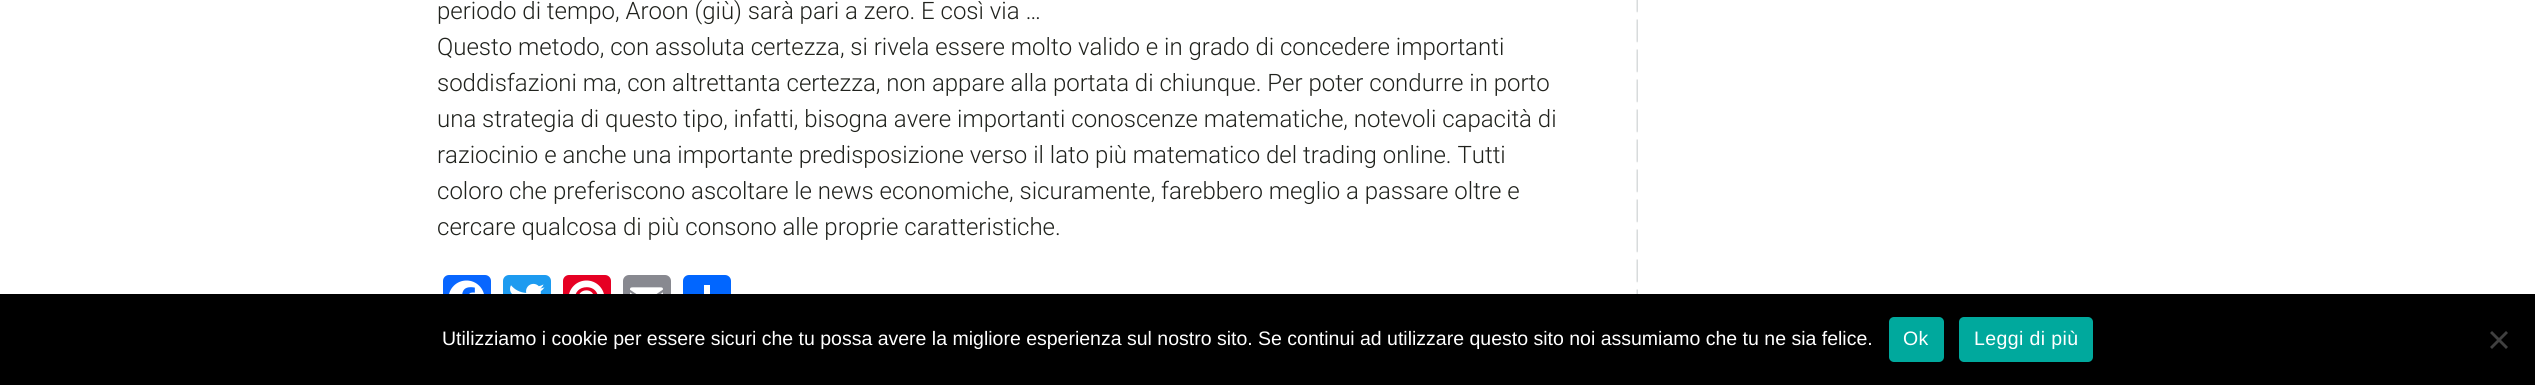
#include <cairo/cairo.h>
#include <math.h>
#include <stddef.h>


static void draw_spaced(cairo_t *cr, double x, double y, const char *s, double letter, double word) {
  cairo_move_to(cr, x, y);
  while (*s) {
    char ch[5] = {0};
    int n = 0;
    do ch[n++] = *s++; while ((*s & 0xC0) == 0x80);
    cairo_show_text(cr, ch);
    cairo_rel_move_to(cr, letter + word * (*ch == ' '), 0);
  }
}

static void rounded_rect(cairo_t *cr, double x, double y, double w, double h, double r) {
  cairo_new_sub_path(cr);
  cairo_arc(cr, x + w - r, y + h - r, r, 0, M_PI / 2);
  cairo_arc(cr, x + r, y + h - r, r, M_PI / 2, M_PI);
  cairo_arc(cr, x + r, y + r, r, M_PI, 1.5 * M_PI);
  cairo_arc(cr, x + w - r, y + r, r, 1.5 * M_PI, 2 * M_PI);
  cairo_close_path(cr);
}

static void draw_image(cairo_t *cr, const char *path, double x, double y, double w, double h) {
  cairo_surface_t *image = cairo_image_surface_create_from_png(path);
  cairo_save(cr);
  cairo_set_source_surface(cr, image, x, y);
  cairo_rectangle(cr, x, y, w, h);
  cairo_fill(cr);
  cairo_restore(cr);
  cairo_surface_destroy(image);
}

static void draw(cairo_t *cr) {
  cairo_set_source_rgb(cr, 1, 1, 1);
  cairo_paint(cr);
  draw_image(cr, "images/1.png", 1636, 0, 2, 294);
  cairo_set_source_rgb(cr, 8 / 255.0, 102 / 255.0, 1);
  rounded_rect(cr, 443, 275, 48, 48, 6);
  cairo_fill(cr);
  draw_image(cr, "images/2.png", 449, 280, 35, 14);
  cairo_set_source_rgb(cr, 29 / 255.0, 155 / 255.0, 240 / 255.0);
  rounded_rect(cr, 503, 275, 48, 48, 6);
  cairo_fill(cr);
  draw_image(cr, "images/3.png", 510, 283, 35, 11);
  cairo_set_source_rgb(cr, 230 / 255.0, 0, 35 / 255.0);
  rounded_rect(cr, 563, 275, 48, 48, 6);
  cairo_fill(cr);
  draw_image(cr, "images/4.png", 569, 280, 35, 14);
  cairo_set_source_rgb(cr, 136 / 255.0, 137 / 255.0, 144 / 255.0);
  rounded_rect(cr, 623, 275, 48, 48, 6);
  cairo_fill(cr);
  draw_image(cr, "images/5.png", 630, 287, 33, 7);
  cairo_set_source_rgb(cr, 1 / 255.0, 102 / 255.0, 1);
  rounded_rect(cr, 683, 275, 48, 48, 6);
  cairo_fill(cr);
  cairo_set_source_rgb(cr, 1, 1, 1);
  cairo_rectangle(cr, 704, 285, 6, 9);
  cairo_fill(cr);
  cairo_set_source_rgb(cr, 0, 0, 0);
  cairo_rectangle(cr, 0, 294, 2535, 91);
  cairo_fill(cr);
  cairo_set_source_rgb(cr, 0, 169 / 255.0, 157 / 255.0);
  rounded_rect(cr, 1889, 317, 55, 45, 5);
  cairo_fill(cr);
  rounded_rect(cr, 1959, 317, 134, 45, 5);
  cairo_fill(cr);
  cairo_set_source_rgb(cr, 64 / 255.0, 64 / 255.0, 64 / 255.0);
  cairo_new_path(cr);
  cairo_move_to(cr, 2506, 331);
  cairo_line_to(cr, 2508, 333);
  cairo_line_to(cr, 2492, 349);
  cairo_line_to(cr, 2490, 347);
  cairo_close_path(cr);
  cairo_fill(cr);
  cairo_new_path(cr);
  cairo_move_to(cr, 2490, 333);
  cairo_line_to(cr, 2492, 331);
  cairo_line_to(cr, 2508, 347);
  cairo_line_to(cr, 2506, 349);
  cairo_close_path(cr);
  cairo_fill(cr);
  cairo_select_font_face(cr, "Roboto Light", CAIRO_FONT_SLANT_NORMAL, CAIRO_FONT_WEIGHT_NORMAL);
  cairo_set_font_size(cr, 24);
  cairo_set_source_rgb(cr, 32 / 255.0, 34 / 255.0, 29 / 255.0);
  cairo_move_to(cr, 437, 19);
  cairo_show_text(cr, "periodo di tempo, Aroon (giù) sarà pari a zero. E così via …");
  cairo_move_to(cr, 437, 55);
  cairo_show_text(cr, "Questo metodo, con assoluta certezza, si rivela essere molto valido e in grado di concedere importanti");
  cairo_move_to(cr, 437, 91);
  cairo_show_text(cr, "soddisfazioni ma, con altrettanta certezza, non appare alla portata di chiunque. Per poter condurre in porto");
  cairo_move_to(cr, 437, 127);
  cairo_show_text(cr, "una strategia di questo tipo, infatti, bisogna avere importanti conoscenze matematiche, notevoli capacità di");
  cairo_move_to(cr, 437, 163);
  cairo_show_text(cr, "raziocinio e anche una importante predisposizione verso il lato più matematico del trading online. Tutti");
  cairo_move_to(cr, 437, 199);
  cairo_show_text(cr, "coloro che preferiscono ascoltare le news economiche, sicuramente, farebbero meglio a passare oltre e");
  cairo_move_to(cr, 437, 235);
  cairo_show_text(cr, "cercare qualcosa di più consono alle proprie caratteristiche.");
  cairo_select_font_face(cr, "Liberation Sans", CAIRO_FONT_SLANT_NORMAL, CAIRO_FONT_WEIGHT_NORMAL);
  cairo_set_font_size(cr, 19.5);
  cairo_set_source_rgb(cr, 1, 1, 1);
  cairo_move_to(cr, 442, 345);
  cairo_show_text(cr, "Utilizziamo i cookie per essere sicuri che tu possa avere la migliore esperienza sul nostro sito. Se continui ad utilizzare questo sito noi assumiamo che tu ne sia felice.");
  draw_spaced(cr, 1903, 345, "Ok", 0.4, 0);
  draw_spaced(cr, 1974, 345, "Leggi di più", 0.4, 0);
}

int main(void) {
  cairo_surface_t *surface = cairo_image_surface_create(CAIRO_FORMAT_RGB24, 2535, 385);
  cairo_t *cr = cairo_create(surface);
  cairo_font_options_t *options = cairo_font_options_create();
  cairo_font_options_set_hint_metrics(options, CAIRO_HINT_METRICS_OFF);
  cairo_font_options_set_hint_style(options, CAIRO_HINT_STYLE_NONE);
  cairo_set_font_options(cr, options);
  cairo_set_miter_limit(cr, 4);
  draw(cr);
  cairo_surface_write_to_png(surface, "out.png");
  cairo_font_options_destroy(options);
  cairo_destroy(cr);
  cairo_surface_destroy(surface);
  return 0;
}
